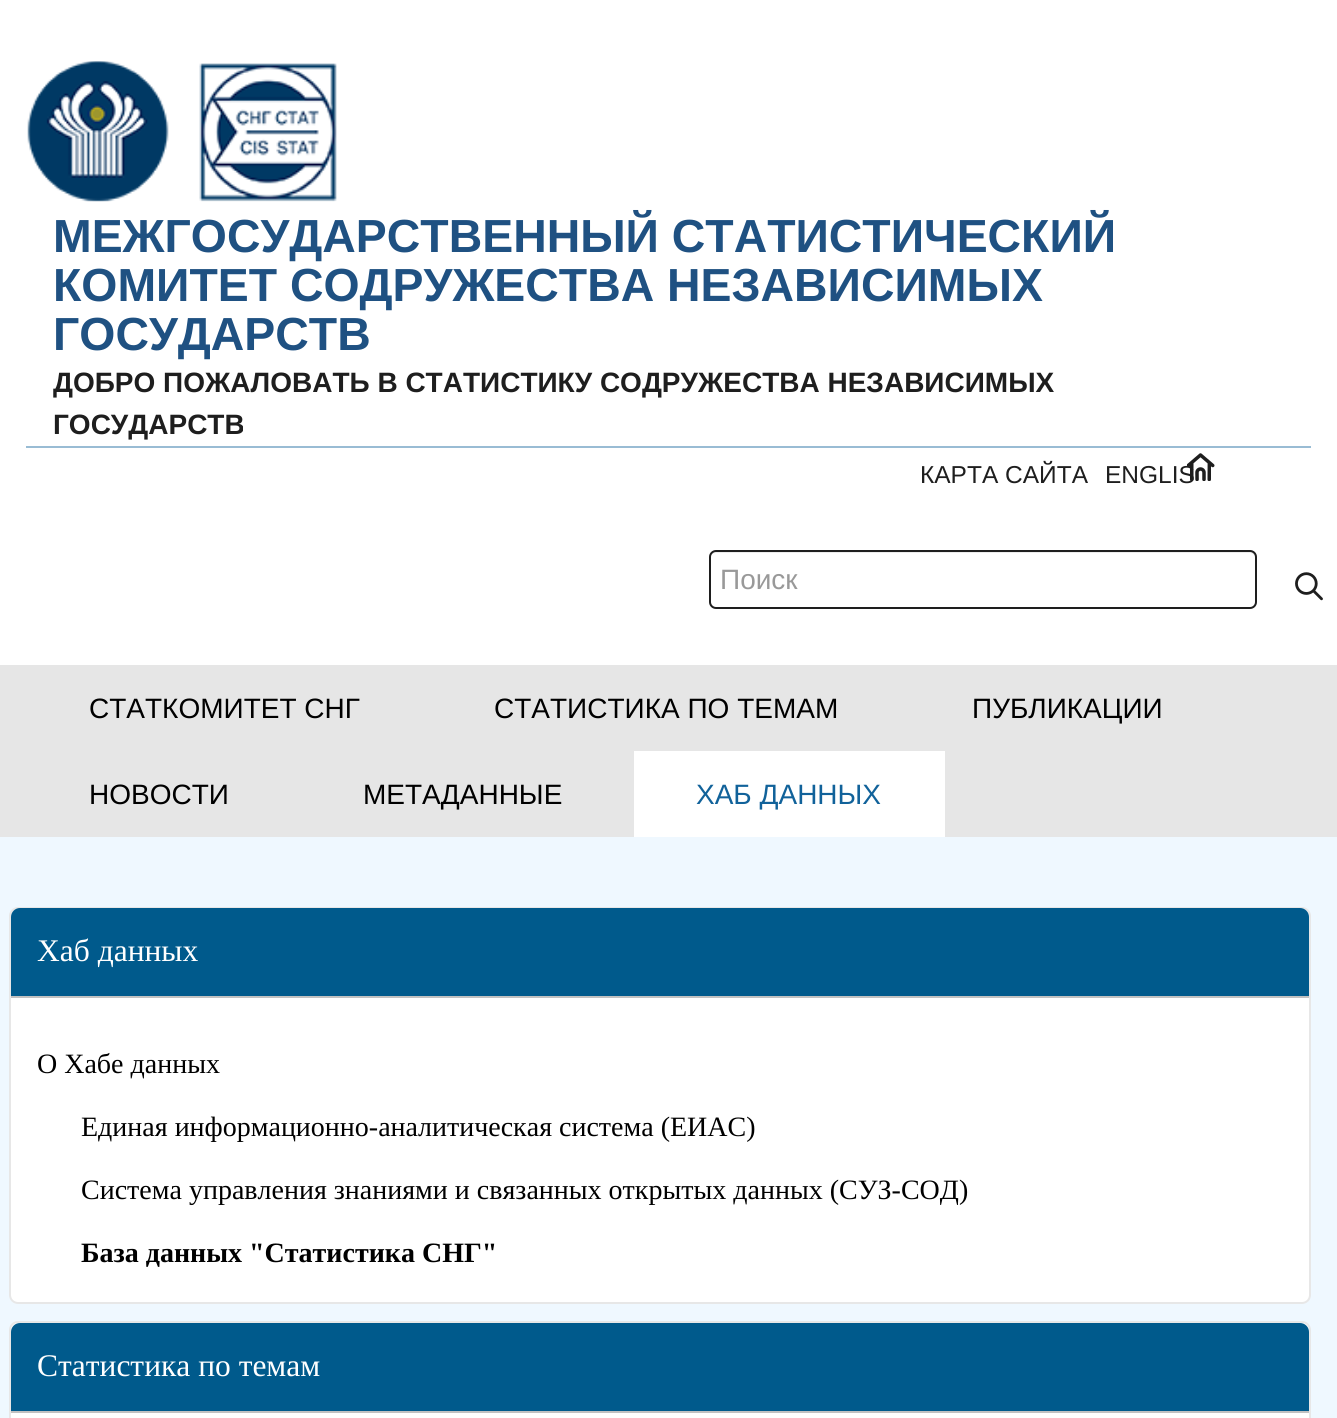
#include <cairo/cairo.h>
#include <math.h>
#include <stddef.h>


static void rounded_rect(cairo_t *cr, double x, double y, double w, double h, double r) {
  cairo_new_sub_path(cr);
  cairo_arc(cr, x + w - r, y + h - r, r, 0, M_PI / 2);
  cairo_arc(cr, x + r, y + h - r, r, M_PI / 2, M_PI);
  cairo_arc(cr, x + r, y + r, r, M_PI, 1.5 * M_PI);
  cairo_arc(cr, x + w - r, y + r, r, 1.5 * M_PI, 2 * M_PI);
  cairo_close_path(cr);
}

static void draw_image(cairo_t *cr, const char *path, double x, double y, double w, double h) {
  cairo_surface_t *image = cairo_image_surface_create_from_png(path);
  cairo_save(cr);
  cairo_set_source_surface(cr, image, x, y);
  cairo_rectangle(cr, x, y, w, h);
  cairo_fill(cr);
  cairo_restore(cr);
  cairo_surface_destroy(image);
}

static void draw(cairo_t *cr) {
  cairo_set_source_rgb(cr, 239 / 255.0, 248 / 255.0, 1);
  cairo_paint(cr);
  cairo_set_source_rgb(cr, 1, 1, 1);
  cairo_rectangle(cr, 0, 0, 1337, 665);
  cairo_fill(cr);
  cairo_set_source_rgb(cr, 153 / 255.0, 188 / 255.0, 212 / 255.0);
  cairo_rectangle(cr, 26, 446, 1285, 2);
  cairo_fill(cr);
  draw_image(cr, "images/1.png", 27, 61, 310, 141);
  draw_image(cr, "images/2.png", 1187, 453, 28, 28);
  cairo_set_source_rgb(cr, 236 / 255.0, 236 / 255.0, 236 / 255.0);
  cairo_new_path(cr);
  cairo_move_to(cr, 716, 553);
  cairo_line_to(cr, 1250, 553);
  cairo_curve_to(cr, 1252, 553, 1255, 555, 1255, 558);
  cairo_line_to(cr, 1255, 556);
  cairo_curve_to(cr, 1255, 553, 1253, 551, 1250, 551);
  cairo_line_to(cr, 716, 551);
  cairo_curve_to(cr, 714, 551, 711, 553, 711, 555);
  cairo_curve_to(cr, 712, 554, 714, 553, 716, 553);
  cairo_close_path(cr);
  cairo_fill(cr);
  rounded_rect(cr, 710, 551, 546, 57, 6);
  cairo_set_source_rgb(cr, 30 / 255.0, 30 / 255.0, 30 / 255.0);
  cairo_stroke(cr);
  draw_image(cr, "images/3.png", 1295, 572, 28, 29);
  cairo_set_source_rgb(cr, 230 / 255.0, 230 / 255.0, 230 / 255.0);
  cairo_rectangle(cr, 0, 665, 1337, 172);
  cairo_fill(cr);
  cairo_set_source_rgb(cr, 1, 1, 1);
  cairo_rectangle(cr, 634, 751, 311, 86);
  cairo_fill(cr);
  rounded_rect(cr, 10, 908, 1300, 395, 8);
  cairo_fill_preserve(cr);
  cairo_set_source_rgb(cr, 231 / 255.0, 231 / 255.0, 231 / 255.0);
  cairo_stroke(cr);
  cairo_set_source_rgb(cr, 0, 90 / 255.0, 140 / 255.0);
  cairo_new_path(cr);
  cairo_move_to(cr, 20, 908);
  cairo_line_to(cr, 1300, 908);
  cairo_curve_to(cr, 1305, 908, 1309, 912, 1309, 917);
  cairo_line_to(cr, 1309, 998);
  cairo_line_to(cr, 11, 998);
  cairo_line_to(cr, 11, 917);
  cairo_curve_to(cr, 11, 912, 15, 908, 20, 908);
  cairo_close_path(cr);
  cairo_fill(cr);
  cairo_set_source_rgb(cr, 193 / 255.0, 193 / 255.0, 193 / 255.0);
  cairo_rectangle(cr, 11, 996, 1298, 2);
  cairo_fill(cr);
  cairo_set_source_rgb(cr, 1, 1, 1);
  rounded_rect(cr, 10, 1322, 1300, 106, 8);
  cairo_fill_preserve(cr);
  cairo_set_source_rgb(cr, 231 / 255.0, 231 / 255.0, 231 / 255.0);
  cairo_stroke(cr);
  cairo_set_source_rgb(cr, 0, 90 / 255.0, 140 / 255.0);
  cairo_new_path(cr);
  cairo_move_to(cr, 20, 1323);
  cairo_line_to(cr, 1300, 1323);
  cairo_curve_to(cr, 1305, 1323, 1309, 1327, 1309, 1332);
  cairo_line_to(cr, 1309, 1412);
  cairo_line_to(cr, 11, 1412);
  cairo_line_to(cr, 11, 1332);
  cairo_curve_to(cr, 11, 1327, 15, 1323, 20, 1323);
  cairo_close_path(cr);
  cairo_fill(cr);
  cairo_set_source_rgb(cr, 193 / 255.0, 193 / 255.0, 193 / 255.0);
  cairo_rectangle(cr, 11, 1411, 1298, 2);
  cairo_fill(cr);
  cairo_select_font_face(cr, "Liberation Sans", CAIRO_FONT_SLANT_NORMAL, CAIRO_FONT_WEIGHT_BOLD);
  cairo_set_font_size(cr, 46.4);
  cairo_set_source_rgb(cr, 31 / 255.0, 81 / 255.0, 130 / 255.0);
  cairo_move_to(cr, 53, 252);
  cairo_show_text(cr, "МЕЖГОСУДАРСТВЕННЫЙ СТАТИСТИЧЕСКИЙ");
  cairo_move_to(cr, 53, 301);
  cairo_show_text(cr, "КОМИТЕТ СОДРУЖЕСТВА НЕЗАВИСИМЫХ");
  cairo_move_to(cr, 53, 350);
  cairo_show_text(cr, "ГОСУДАРСТВ");
  cairo_set_font_size(cr, 28);
  cairo_set_source_rgb(cr, 30 / 255.0, 30 / 255.0, 30 / 255.0);
  cairo_move_to(cr, 53, 392);
  cairo_show_text(cr, "ДОБРО ПОЖАЛОВАТЬ В СТАТИСТИКУ СОДРУЖЕСТВА НЕЗАВИСИМЫХ");
  cairo_move_to(cr, 53, 434);
  cairo_show_text(cr, "ГОСУДАРСТВ");
  cairo_select_font_face(cr, "Liberation Sans", CAIRO_FONT_SLANT_NORMAL, CAIRO_FONT_WEIGHT_NORMAL);
  cairo_set_font_size(cr, 24.5);
  cairo_move_to(cr, 920, 483);
  cairo_show_text(cr, "КАРТА САЙТА");
  cairo_move_to(cr, 1105, 483);
  cairo_show_text(cr, "ENGLIS");
  cairo_set_font_size(cr, 28);
  cairo_set_source_rgb(cr, 153 / 255.0, 153 / 255.0, 153 / 255.0);
  cairo_move_to(cr, 720, 589);
  cairo_show_text(cr, "Поиск");
  cairo_set_source_rgb(cr, 0, 0, 0);
  cairo_move_to(cr, 89, 718);
  cairo_show_text(cr, "СТАТКОМИТЕТ СНГ");
  cairo_move_to(cr, 494, 718);
  cairo_show_text(cr, "СТАТИСТИКА ПО ТЕМАМ");
  cairo_move_to(cr, 972, 718);
  cairo_show_text(cr, "ПУБЛИКАЦИИ");
  cairo_move_to(cr, 89, 804);
  cairo_show_text(cr, "НОВОСТИ");
  cairo_move_to(cr, 363, 804);
  cairo_show_text(cr, "МЕТАДАННЫЕ");
  cairo_set_source_rgb(cr, 17 / 255.0, 98 / 255.0, 154 / 255.0);
  cairo_move_to(cr, 696, 804);
  cairo_show_text(cr, "ХАБ ДАННЫХ");
  cairo_select_font_face(cr, "Liberation Serif", CAIRO_FONT_SLANT_NORMAL, CAIRO_FONT_WEIGHT_NORMAL);
  cairo_set_font_size(cr, 31.5);
  cairo_set_source_rgb(cr, 1, 1, 1);
  cairo_move_to(cr, 37, 961);
  cairo_show_text(cr, "Хаб данных");
  cairo_set_font_size(cr, 28);
  cairo_set_source_rgb(cr, 0, 0, 0);
  cairo_move_to(cr, 37, 1073);
  cairo_show_text(cr, "О Хабе данных");
  cairo_move_to(cr, 81, 1136);
  cairo_show_text(cr, "Единая информационно-аналитическая система (ЕИАС)");
  cairo_move_to(cr, 81, 1199);
  cairo_show_text(cr, "Система управления знаниями и связанных открытых данных (СУЗ-СОД)");
  cairo_select_font_face(cr, "Liberation Serif", CAIRO_FONT_SLANT_NORMAL, CAIRO_FONT_WEIGHT_BOLD);
  cairo_move_to(cr, 81, 1262);
  cairo_show_text(cr, "База данных \"Статистика СНГ\"");
  cairo_select_font_face(cr, "Liberation Serif", CAIRO_FONT_SLANT_NORMAL, CAIRO_FONT_WEIGHT_NORMAL);
  cairo_set_font_size(cr, 31.5);
  cairo_set_source_rgb(cr, 1, 1, 1);
  cairo_move_to(cr, 37, 1376);
  cairo_show_text(cr, "Статистика по темам");
}

int main(void) {
  cairo_surface_t *surface = cairo_image_surface_create(CAIRO_FORMAT_RGB24, 1337, 1418);
  cairo_t *cr = cairo_create(surface);
  cairo_font_options_t *options = cairo_font_options_create();
  cairo_font_options_set_hint_metrics(options, CAIRO_HINT_METRICS_OFF);
  cairo_font_options_set_hint_style(options, CAIRO_HINT_STYLE_NONE);
  cairo_set_font_options(cr, options);
  cairo_set_miter_limit(cr, 4);
  draw(cr);
  cairo_surface_write_to_png(surface, "out.png");
  cairo_font_options_destroy(options);
  cairo_destroy(cr);
  cairo_surface_destroy(surface);
  return 0;
}
